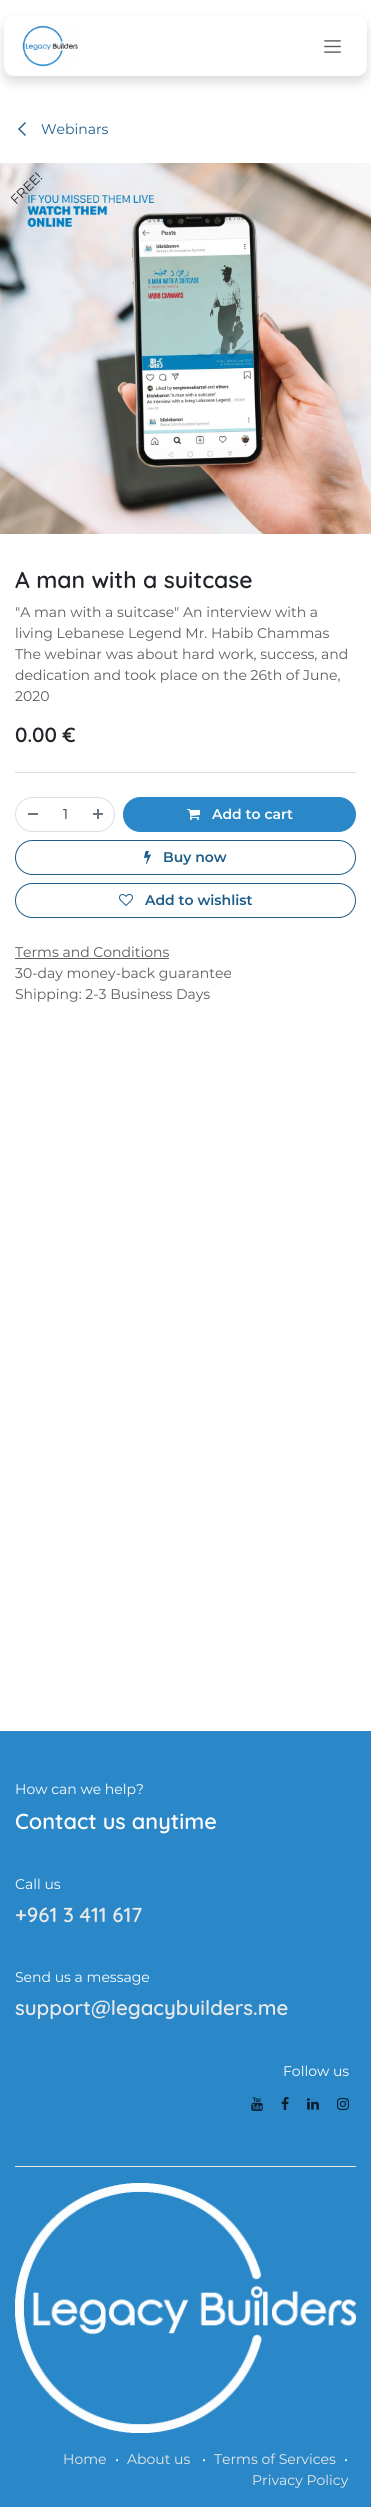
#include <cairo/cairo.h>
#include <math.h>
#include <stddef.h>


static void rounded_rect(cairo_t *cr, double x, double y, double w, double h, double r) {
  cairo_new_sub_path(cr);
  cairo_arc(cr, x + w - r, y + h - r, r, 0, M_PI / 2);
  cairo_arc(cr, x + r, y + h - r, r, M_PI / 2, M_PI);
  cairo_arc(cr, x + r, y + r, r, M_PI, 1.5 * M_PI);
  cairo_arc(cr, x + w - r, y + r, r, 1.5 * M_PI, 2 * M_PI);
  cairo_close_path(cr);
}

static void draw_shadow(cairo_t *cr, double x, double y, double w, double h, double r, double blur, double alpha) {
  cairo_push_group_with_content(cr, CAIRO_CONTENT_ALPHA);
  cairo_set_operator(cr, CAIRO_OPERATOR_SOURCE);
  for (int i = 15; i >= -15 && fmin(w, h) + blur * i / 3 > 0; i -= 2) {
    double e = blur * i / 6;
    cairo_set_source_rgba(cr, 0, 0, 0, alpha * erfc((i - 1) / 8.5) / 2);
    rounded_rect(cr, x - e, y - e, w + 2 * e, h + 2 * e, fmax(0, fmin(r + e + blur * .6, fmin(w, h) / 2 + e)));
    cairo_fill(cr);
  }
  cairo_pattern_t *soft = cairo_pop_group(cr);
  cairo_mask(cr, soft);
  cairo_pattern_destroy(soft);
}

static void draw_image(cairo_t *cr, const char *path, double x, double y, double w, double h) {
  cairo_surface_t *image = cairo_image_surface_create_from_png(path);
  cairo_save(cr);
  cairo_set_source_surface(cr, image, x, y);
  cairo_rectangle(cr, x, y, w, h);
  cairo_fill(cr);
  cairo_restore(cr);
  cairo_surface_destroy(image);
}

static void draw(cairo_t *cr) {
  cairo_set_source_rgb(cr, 1, 1, 1);
  cairo_paint(cr);
  cairo_set_source_rgb(cr, 0, 0, 0);
  draw_shadow(cr, 4, 22, 363, 60, 10, 6, 0.15);
  cairo_set_source_rgb(cr, 1, 1, 1);
  rounded_rect(cr, 4, 16, 363, 60, 10);
  cairo_fill(cr);
  draw_image(cr, "images/1.png", 22, 25, 56, 42);
  draw_image(cr, "images/2.png", 324, 40, 17, 13);
  draw_image(cr, "images/3.png", 18, 122, 8, 14);
  draw_image(cr, "images/4.png", 0, 163, 371, 371);
  cairo_set_source_rgb(cr, 222 / 255.0, 222 / 255.0, 223 / 255.0);
  cairo_rectangle(cr, 15, 772, 341, 1);
  cairo_fill(cr);
  rounded_rect(cr, 15.5, 797.5, 99, 34, 17);
  cairo_set_line_width(cr, 1);
  cairo_stroke(cr);
  cairo_set_source_rgb(cr, 108 / 255.0, 117 / 255.0, 125 / 255.0);
  cairo_rectangle(cr, 28, 813, 10, 2);
  cairo_fill(cr);
  draw_image(cr, "images/5.png", 93, 809, 10, 10);
  cairo_set_source_rgb(cr, 42 / 255.0, 135 / 255.0, 200 / 255.0);
  rounded_rect(cr, 123.5, 797.5, 232, 34, 17);
  cairo_fill_preserve(cr);
  cairo_stroke(cr);
  draw_image(cr, "images/6.png", 187, 809, 13, 11);
  rounded_rect(cr, 15.5, 840.5, 340, 34, 17);
  cairo_set_source_rgb(cr, 29 / 255.0, 92 / 255.0, 137 / 255.0);
  cairo_stroke(cr);
  draw_image(cr, "images/7.png", 144, 851, 7, 13);
  rounded_rect(cr, 15.5, 883.5, 340, 34, 17);
  cairo_stroke(cr);
  draw_image(cr, "images/8.png", 119, 894, 14, 12);
  cairo_set_source_rgb(cr, 89 / 255.0, 92 / 255.0, 95 / 255.0);
  cairo_rectangle(cr, 15, 958, 154, 1);
  cairo_fill(cr);
  cairo_set_source_rgb(cr, 42 / 255.0, 135 / 255.0, 200 / 255.0);
  cairo_rectangle(cr, 0, 1731, 371, 776);
  cairo_fill(cr);
  draw_image(cr, "images/9.png", 251, 2097, 12, 14);
  draw_image(cr, "images/10.png", 281, 2097, 8, 13);
  draw_image(cr, "images/11.png", 307, 2098, 12, 12);
  draw_image(cr, "images/12.png", 337, 2098, 12, 12);
  cairo_set_source_rgb(cr, 233 / 255.0, 233 / 255.0, 233 / 255.0);
  cairo_rectangle(cr, 15, 2166, 341, 1);
  cairo_fill(cr);
  draw_image(cr, "images/13.png", 15, 2183, 341, 250);
  cairo_select_font_face(cr, "Montserrat", CAIRO_FONT_SLANT_NORMAL, CAIRO_FONT_WEIGHT_NORMAL);
  cairo_set_font_size(cr, 14);
  cairo_set_source_rgb(cr, 29 / 255.0, 92 / 255.0, 137 / 255.0);
  cairo_move_to(cr, 41, 134);
  cairo_show_text(cr, "Webinars");
  cairo_set_font_size(cr, 13);
  cairo_set_source_rgb(cr, 33 / 255.0, 37 / 255.0, 41 / 255.0);
  cairo_save(cr);
  cairo_translate(cr, 16, 205);
  cairo_rotate(cr, -45 * M_PI / 180);
  cairo_move_to(cr, 0, 0);
  cairo_show_text(cr, "FREE!");
  cairo_restore(cr);
  cairo_select_font_face(cr, "Quicksand SemiBold", CAIRO_FONT_SLANT_NORMAL, CAIRO_FONT_WEIGHT_NORMAL);
  cairo_set_font_size(cr, 23);
  cairo_move_to(cr, 15, 588);
  cairo_show_text(cr, "A man with a suitcase");
  cairo_select_font_face(cr, "Montserrat", CAIRO_FONT_SLANT_NORMAL, CAIRO_FONT_WEIGHT_NORMAL);
  cairo_set_font_size(cr, 14);
  cairo_set_source_rgb(cr, 89 / 255.0, 92 / 255.0, 95 / 255.0);
  cairo_move_to(cr, 15, 617);
  cairo_show_text(cr, "\"A man with a suitcase\" An interview with a");
  cairo_move_to(cr, 15, 638);
  cairo_show_text(cr, "living Lebanese Legend Mr. Habib Chammas");
  cairo_move_to(cr, 15, 659);
  cairo_show_text(cr, "The webinar was about hard work, success, and");
  cairo_move_to(cr, 15, 680);
  cairo_show_text(cr, "dedication and took place on the 26th of June,");
  cairo_move_to(cr, 15, 701);
  cairo_show_text(cr, "2020");
  cairo_select_font_face(cr, "Quicksand SemiBold", CAIRO_FONT_SLANT_NORMAL, CAIRO_FONT_WEIGHT_NORMAL);
  cairo_set_font_size(cr, 20.4);
  cairo_set_source_rgb(cr, 33 / 255.0, 37 / 255.0, 41 / 255.0);
  cairo_move_to(cr, 15, 742);
  cairo_show_text(cr, "0.00 €");
  cairo_select_font_face(cr, "Montserrat", CAIRO_FONT_SLANT_NORMAL, CAIRO_FONT_WEIGHT_NORMAL);
  cairo_set_font_size(cr, 14);
  cairo_move_to(cr, 63, 819);
  cairo_show_text(cr, "1");
  cairo_select_font_face(cr, "Montserrat SemiBold", CAIRO_FONT_SLANT_NORMAL, CAIRO_FONT_WEIGHT_NORMAL);
  cairo_set_source_rgb(cr, 1, 1, 1);
  cairo_move_to(cr, 212, 819);
  cairo_show_text(cr, "Add to cart");
  cairo_set_source_rgb(cr, 29 / 255.0, 92 / 255.0, 137 / 255.0);
  cairo_move_to(cr, 163, 862);
  cairo_show_text(cr, "Buy now");
  cairo_move_to(cr, 145, 905);
  cairo_show_text(cr, "Add to wishlist");
  cairo_select_font_face(cr, "Montserrat", CAIRO_FONT_SLANT_NORMAL, CAIRO_FONT_WEIGHT_NORMAL);
  cairo_set_source_rgb(cr, 89 / 255.0, 92 / 255.0, 95 / 255.0);
  cairo_move_to(cr, 15, 957);
  cairo_show_text(cr, "Terms and Conditions");
  cairo_move_to(cr, 15, 978);
  cairo_show_text(cr, "30-day money-back guarantee");
  cairo_move_to(cr, 15, 999);
  cairo_show_text(cr, "Shipping: 2-3 Business Days");
  cairo_set_source_rgb(cr, 1, 1, 1);
  cairo_move_to(cr, 15, 1794);
  cairo_show_text(cr, "How can we help?");
  cairo_select_font_face(cr, "Quicksand SemiBold", CAIRO_FONT_SLANT_NORMAL, CAIRO_FONT_WEIGHT_NORMAL);
  cairo_set_font_size(cr, 21.75);
  cairo_move_to(cr, 15, 1829);
  cairo_show_text(cr, "Contact us anytime");
  cairo_select_font_face(cr, "Montserrat", CAIRO_FONT_SLANT_NORMAL, CAIRO_FONT_WEIGHT_NORMAL);
  cairo_set_font_size(cr, 14);
  cairo_move_to(cr, 15, 1889);
  cairo_show_text(cr, "Call us");
  cairo_select_font_face(cr, "Quicksand SemiBold", CAIRO_FONT_SLANT_NORMAL, CAIRO_FONT_WEIGHT_NORMAL);
  cairo_set_font_size(cr, 20.4);
  cairo_set_source_rgb(cr, 233 / 255.0, 233 / 255.0, 233 / 255.0);
  cairo_move_to(cr, 15, 1922);
  cairo_show_text(cr, "+961 3 411 617");
  cairo_select_font_face(cr, "Montserrat", CAIRO_FONT_SLANT_NORMAL, CAIRO_FONT_WEIGHT_NORMAL);
  cairo_set_font_size(cr, 14);
  cairo_set_source_rgb(cr, 1, 1, 1);
  cairo_move_to(cr, 15, 1982);
  cairo_show_text(cr, "Send us a message");
  cairo_select_font_face(cr, "Quicksand SemiBold", CAIRO_FONT_SLANT_NORMAL, CAIRO_FONT_WEIGHT_NORMAL);
  cairo_set_font_size(cr, 20.4);
  cairo_set_source_rgb(cr, 233 / 255.0, 233 / 255.0, 233 / 255.0);
  cairo_move_to(cr, 15, 2015);
  cairo_show_text(cr, "support@legacybuilders.me");
  cairo_select_font_face(cr, "Montserrat", CAIRO_FONT_SLANT_NORMAL, CAIRO_FONT_WEIGHT_NORMAL);
  cairo_set_font_size(cr, 14);
  cairo_set_source_rgb(cr, 1, 1, 1);
  cairo_move_to(cr, 283, 2076);
  cairo_show_text(cr, "Follow us");
  cairo_set_source_rgb(cr, 233 / 255.0, 233 / 255.0, 233 / 255.0);
  cairo_move_to(cr, 63, 2464);
  cairo_show_text(cr, "Home");
  cairo_set_source_rgb(cr, 1, 1, 1);
  cairo_move_to(cr, 115, 2464);
  cairo_show_text(cr, "•");
  cairo_set_source_rgb(cr, 233 / 255.0, 233 / 255.0, 233 / 255.0);
  cairo_move_to(cr, 127, 2464);
  cairo_show_text(cr, "About us");
  cairo_set_source_rgb(cr, 1, 1, 1);
  cairo_move_to(cr, 202, 2464);
  cairo_show_text(cr, "•");
  cairo_set_source_rgb(cr, 233 / 255.0, 233 / 255.0, 233 / 255.0);
  cairo_move_to(cr, 214, 2464);
  cairo_show_text(cr, "Terms of Services");
  cairo_set_source_rgb(cr, 1, 1, 1);
  cairo_move_to(cr, 344, 2464);
  cairo_show_text(cr, "•");
  cairo_set_source_rgb(cr, 233 / 255.0, 233 / 255.0, 233 / 255.0);
  cairo_move_to(cr, 252, 2485);
  cairo_show_text(cr, "Privacy Policy");
}

int main(void) {
  cairo_surface_t *surface = cairo_image_surface_create(CAIRO_FORMAT_RGB24, 371, 2507);
  cairo_t *cr = cairo_create(surface);
  cairo_font_options_t *options = cairo_font_options_create();
  cairo_font_options_set_hint_metrics(options, CAIRO_HINT_METRICS_OFF);
  cairo_font_options_set_hint_style(options, CAIRO_HINT_STYLE_NONE);
  cairo_set_font_options(cr, options);
  cairo_set_miter_limit(cr, 4);
  draw(cr);
  cairo_surface_write_to_png(surface, "out.png");
  cairo_font_options_destroy(options);
  cairo_destroy(cr);
  cairo_surface_destroy(surface);
  return 0;
}
